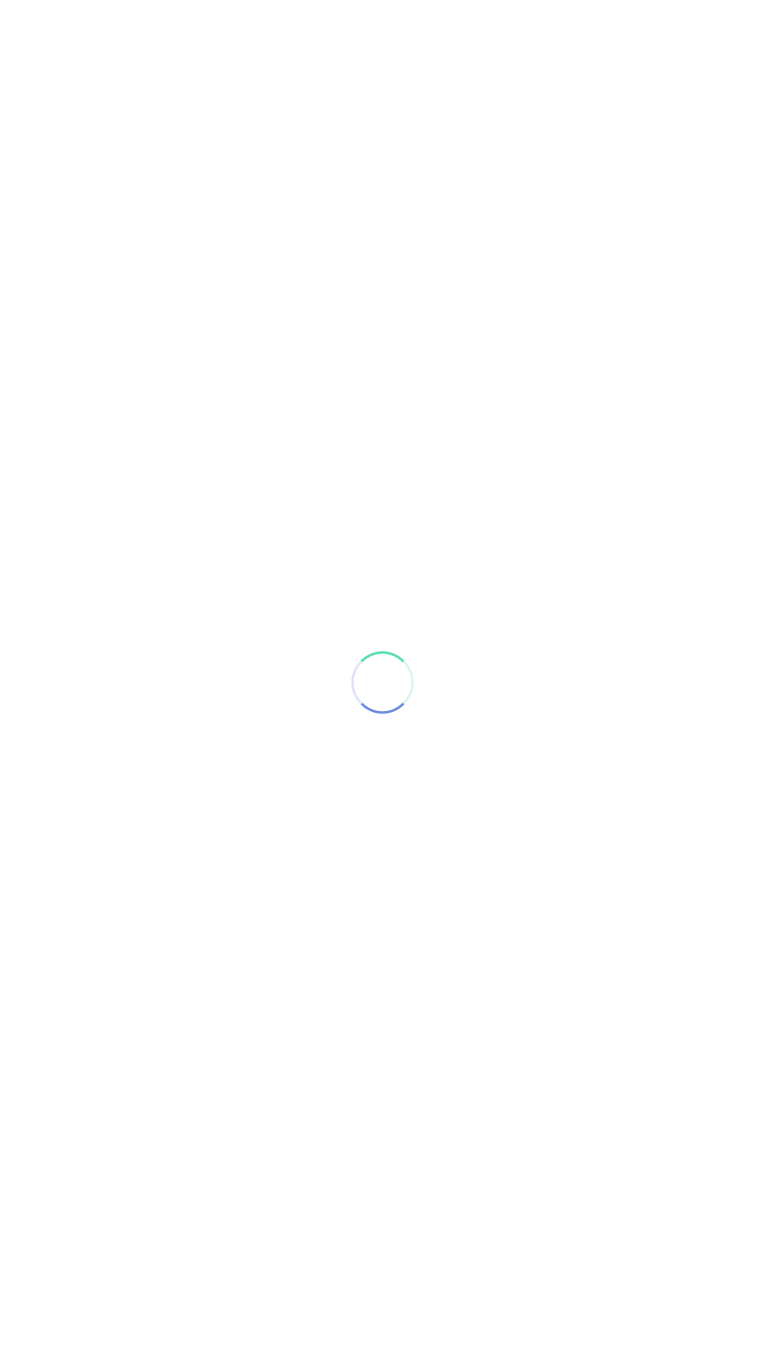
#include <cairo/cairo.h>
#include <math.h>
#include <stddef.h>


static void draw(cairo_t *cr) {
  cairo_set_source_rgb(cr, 1, 1, 1);
  cairo_paint(cr);
  cairo_new_path(cr);
  cairo_move_to(cr, 361.5, 661.5);
  cairo_curve_to(cr, 373, 649.5, 392, 649.5, 403.5, 661.5);
  cairo_set_source_rgb(cr, 89 / 255.0, 222 / 255.0, 174 / 255.0);
  cairo_set_line_width(cr, 2.5);
  cairo_stroke(cr);
  cairo_new_path(cr);
  cairo_move_to(cr, 403.5, 661.5);
  cairo_curve_to(cr, 415.5, 673, 415.5, 692, 403.5, 703.5);
  cairo_set_source_rgba(cr, 0, 204 / 255.0, 131 / 255.0, 0.15);
  cairo_stroke(cr);
  cairo_new_path(cr);
  cairo_move_to(cr, 403.5, 703.5);
  cairo_curve_to(cr, 392, 715.5, 373, 715.5, 361.5, 703.5);
  cairo_set_source_rgba(cr, 32 / 255.0, 78 / 255.0, 207 / 255.0, 0.65);
  cairo_stroke(cr);
  cairo_new_path(cr);
  cairo_move_to(cr, 361.5, 703.5);
  cairo_curve_to(cr, 349.5, 692, 349.5, 673, 361.5, 661.5);
  cairo_set_source_rgb(cr, 222 / 255.0, 228 / 255.0, 248 / 255.0);
  cairo_stroke(cr);
}

int main(void) {
  cairo_surface_t *surface = cairo_image_surface_create(CAIRO_FORMAT_RGB24, 765, 1364);
  cairo_t *cr = cairo_create(surface);
  cairo_font_options_t *options = cairo_font_options_create();
  cairo_font_options_set_hint_metrics(options, CAIRO_HINT_METRICS_OFF);
  cairo_font_options_set_hint_style(options, CAIRO_HINT_STYLE_NONE);
  cairo_set_font_options(cr, options);
  cairo_set_miter_limit(cr, 4);
  draw(cr);
  cairo_surface_write_to_png(surface, "out.png");
  cairo_font_options_destroy(options);
  cairo_destroy(cr);
  cairo_surface_destroy(surface);
  return 0;
}
